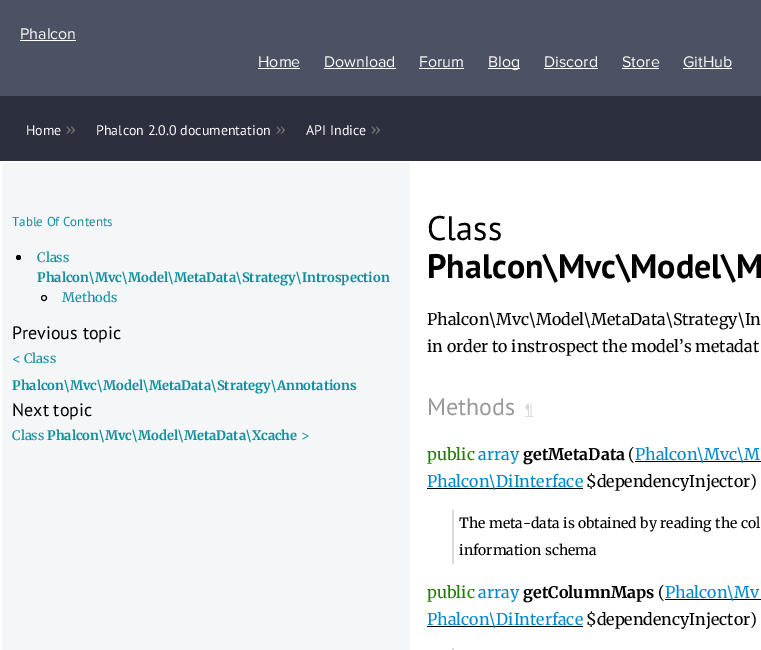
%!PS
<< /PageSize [761 650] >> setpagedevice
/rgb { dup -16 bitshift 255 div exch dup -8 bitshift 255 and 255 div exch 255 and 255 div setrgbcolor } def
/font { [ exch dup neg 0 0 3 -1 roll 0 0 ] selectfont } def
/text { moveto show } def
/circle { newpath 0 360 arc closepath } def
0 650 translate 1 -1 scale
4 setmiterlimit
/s1 { /ProximaNova-Regular 16 font 16#FAFAFA rgb } def
/s2 { /PTSans-Regular 14 font 16#FAFAFA rgb } def
/s3 { /Merriweather-Regular 16 font 16#717171 rgb } def
/s4 { /PTSans-Regular 13 font 16#118F9E rgb } def
/s5 { /Merriweather-Regular 13 font 16#118F9E rgb } def
/s6 { /Merriweather-Bold 13 font 16#118F9E rgb } def
/s7 { /PTSans-Regular 18 font 16#000000 rgb } def
/s8 { /PTSans-Regular 34 font 16#000000 rgb } def
/s9 { /PTSans-Bold 34 font 16#000000 rgb } def
/s10 { /Merriweather-Regular 16 font 16#000000 rgb } def
/s11 { /PTSans-Regular 24 font 16#999999 rgb } def
/s12 { /PTSans-Regular 16 font 16#DADADA rgb } def
/s13 { /Merriweather-Regular 16 font 16#267B0C rgb } def
/s14 { /Merriweather-Regular 16 font 16#0088CC rgb } def
/s15 { /Merriweather-Bold 16 font 16#000000 rgb } def
/s16 { /Merriweather-Regular 14 font 16#000000 rgb } def
16#FFFFFF rgb
0 0 761 650 rectfill
16#4C5264 rgb
0 0 761 96 rectfill
s1
(Phalcon) 20 39 text
16#FFFFFF rgb
20 40 56 1 rectfill
s1
(Home) 258 67 text
16#FFFFFF rgb
258 68 42 1 rectfill
s1
(Download) 324 67 text
16#FFFFFF rgb
324 68 72 1 rectfill
s1
(Forum) 419 67 text
16#FFFFFF rgb
419 68 45 1 rectfill
488 68 32 1 rectfill
s1
(Blog) 488 67 text
(Discord) 544 67 text
16#FFFFFF rgb
544 68 54 1 rectfill
s1
(Store) 622 67 text
16#FFFFFF rgb
622 68 37 1 rectfill
s1
(GitHub) 683 67 text
16#FFFFFF rgb
683 68 49 1 rectfill
16#2B2F3E rgb
0 96 761 65 rectfill
s2
(Home) 26 135 text
s3
(») 65 135 text
s2
(Phalcon 2.0.0 documentation) 96 135 text
s3
(») 275 135 text
s2
(API Indice) 306 135 text
s3
(») 370 135 text
16#F5F6F7 rgb
2 163 408 487 rectfill
s4
(Table Of Contents) 12 226 text
16#000000 rgb
18.5 257.5 2.5 circle fill
s5
(Class) 37 262 text
s6
(Phalcon\\Mvc\\Model\\MetaData\\Strategy\\Introspection) 37 282 text
16#000000 rgb
44 298 2.5 circle stroke
s5
(Methods) 62 302 text
s7
(Previous topic) 12 339 text
s5
(< Class) 12 363 text
s6
(Phalcon\\Mvc\\Model\\MetaData\\Strategy\\Annotations) 12 390 text
s7
(Next topic) 12 416 text
s5
(Class) 12 440 text
s6
(Phalcon\\Mvc\\Model\\MetaData\\Xcache) 47 440 text
s5
(>) 301 440 text
s8
(Class) 427 240 text
s9
(Phalcon\\Mvc\\Model\\M) 427 278 text
s10
(Phalcon\\Mvc\\Model\\MetaData\\Strategy\\In) 427 325 text
(in order to instrospect the model’s metadat) 427 352 text
s11
(Methods) 427 415 text
16#DADADA rgb
525 416 8 1 rectfill
s12
(¶) 525 415 text
s13
(public) 427 460 text
s14
(array) 478 460 text
s15
(getMetaData) 523 460 text
s10
(\() 628 460 text
635 461 126 1 rectfill
s14
(Phalcon\\Mvc\\M) 635 460 text
16#000000 rgb
427 488 156 1 rectfill
s14
(Phalcon\\DiInterface) 427 487 text
s10
($dependencyInjector\)) 586 487 text
16#DADADA rgb
452 510 2 54 rectfill
s16
(The meta-data is obtained by reading the col) 459 528 text
(information schema) 459 555 text
s13
(public) 427 598 text
s14
(array) 478 598 text
s15
(getColumnMaps) 523 598 text
s10
(\() 658 598 text
665 599 96 1 rectfill
s14
(Phalcon\\Mv) 665 598 text
16#000000 rgb
427 626 156 1 rectfill
s14
(Phalcon\\DiInterface) 427 625 text
s10
($dependencyInjector\)) 586 625 text
16#DADADA rgb
452 648 2 2 rectfill
showpage
